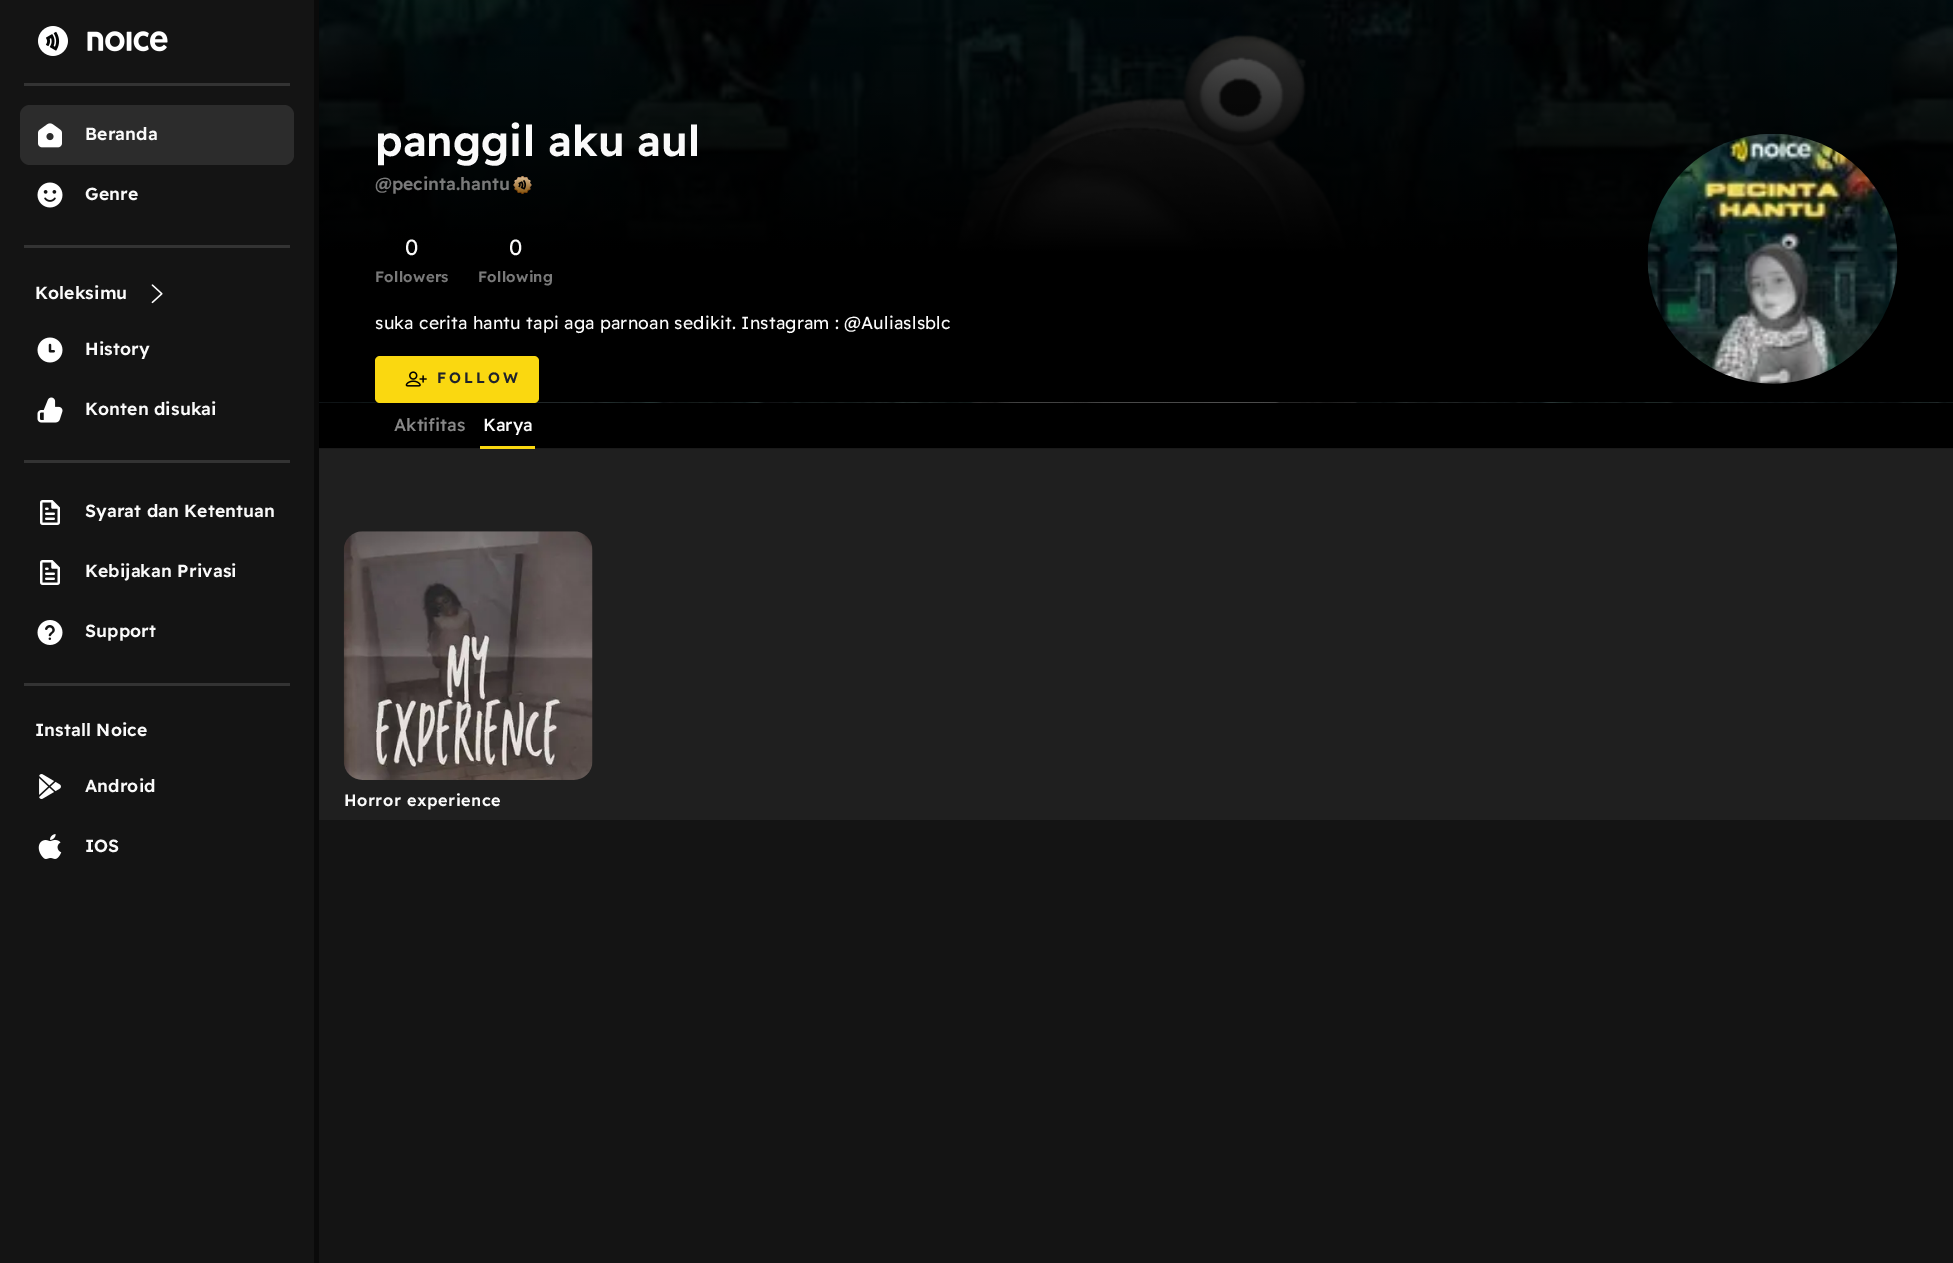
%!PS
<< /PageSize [1953 1263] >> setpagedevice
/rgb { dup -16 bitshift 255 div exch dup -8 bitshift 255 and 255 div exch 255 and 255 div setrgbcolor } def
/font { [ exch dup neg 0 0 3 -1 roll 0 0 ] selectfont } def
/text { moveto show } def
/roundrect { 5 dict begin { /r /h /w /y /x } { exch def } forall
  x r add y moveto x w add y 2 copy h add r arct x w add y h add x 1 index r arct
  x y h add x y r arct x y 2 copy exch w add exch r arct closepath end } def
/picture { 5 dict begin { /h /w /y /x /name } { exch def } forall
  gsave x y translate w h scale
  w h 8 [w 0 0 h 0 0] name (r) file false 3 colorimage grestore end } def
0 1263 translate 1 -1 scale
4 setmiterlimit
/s1 { /ReadexPro-SemiBold 17.5 font 16#7A7A7A rgb } def
/s2 { /ReadexPro-Regular 22 font 16#FAFAFA rgb } def
/s3 { /ReadexPro-Medium 17.5 font 16#888888 rgb } def
/s4 { /ReadexPro-Medium 17.5 font 16#FAFAFA rgb } def
16#141414 rgb
0 0 1953 1263 rectfill
16#0A0A0A rgb
314 0 5 1263 rectfill
(pic1.raw) 38 26 130 30 picture
16#333333 rgb
24 83 266 3 rectfill
16#2C2C2C rgb
20 105 274 60 10 roundrect fill
(pic2.raw) 38 123 24 25 picture
/ReadexPro-SemiBold 17.5 font
16#FAFAFA rgb
85 140 moveto 0.1 0 (Beranda) ashow
(pic3.raw) 37 182 26 26 picture
85 200 moveto 0.1 0 (Genre) ashow
16#333333 rgb
24 245 266 3 rectfill
16#FAFAFA rgb
35 299 moveto 0.1 0 (Koleksimu) ashow
(pic4.raw) 151 284 12 20 picture
(pic5.raw) 37 337 26 26 picture
85 355 moveto 0.1 0 (History) ashow
(pic6.raw) 37 397 26 26 picture
85 415 moveto 0.1 0 (Konten disukai) ashow
16#333333 rgb
24 460 266 3 rectfill
(pic7.raw) 40 500 20 25 picture
16#FAFAFA rgb
85 517 moveto 0.1 0 (Syarat dan Ketentuan) ashow
(pic7.raw) 40 560 20 25 picture
85 577 moveto 0.1 0 (Kebijakan Privasi) ashow
(pic8.raw) 37 620 26 25 picture
85 637 moveto 0.1 0 (Support) ashow
16#333333 rgb
24 683 266 3 rectfill
16#FAFAFA rgb
35 736 moveto 0.1 0 (Install Noice) ashow
(pic9.raw) 39 774 22 25 picture
85 792 moveto 0.1 0 (Android) ashow
(pic10.raw) 38 834 24 25 picture
85 852 moveto 0.1 0 (IOS) ashow
16#1F1F1F rgb
319 402 1634 418 rectfill
(pic11.raw) 319 0 1634 403 picture
/ReadexPro-SemiBold 42.5 font
16#FAFAFA rgb
375 156 moveto 0.1 0 (panggil aku aul) ashow
s1
(@pecinta.hantu) 375 190 text
(pic12.raw) 513 176 19 18 picture
s2
(0) 405 255 text
/ReadexPro-SemiBold 15 font
16#7A7A7A rgb
375 282 moveto 0.25 0 (Followers) ashow
s2
(0) 509 255 text
/ReadexPro-SemiBold 15 font
16#7A7A7A rgb
478 282 moveto 0.25 0 (Following) ashow
/ReadexPro-Regular 17.5 font
16#FAFAFA rgb
375 329 moveto 0.18 0 (suka cerita hantu tapi aga parnoan sedikit. Instagram : @Auliaslsblc) ashow
16#FAD810 rgb
375 356 164 47 5 roundrect fill
(pic13.raw) 405 371 22 16 picture
/ReadexPro-SemiBold 15 font
16#1E222C rgb
437 383 moveto 3 0 (FOLLOW) ashow
(pic14.raw) 1647 134 251 250 picture
16#000000 rgb
319 403 1634 45 rectfill
16#1A1A1A rgb
319 448 1634 1 rectfill
s3
(Aktifitas) 394 431 text
s4
(Karya) 483 431 text
16#FAD810 rgb
480 446 55 3 rectfill
(pic15.raw) 343 531 250 249 picture
/ReadexPro-SemiBold 16.25 font
16#FAFAFA rgb
344 806 moveto 0.5 0 (Horror experience) ashow
showpage
